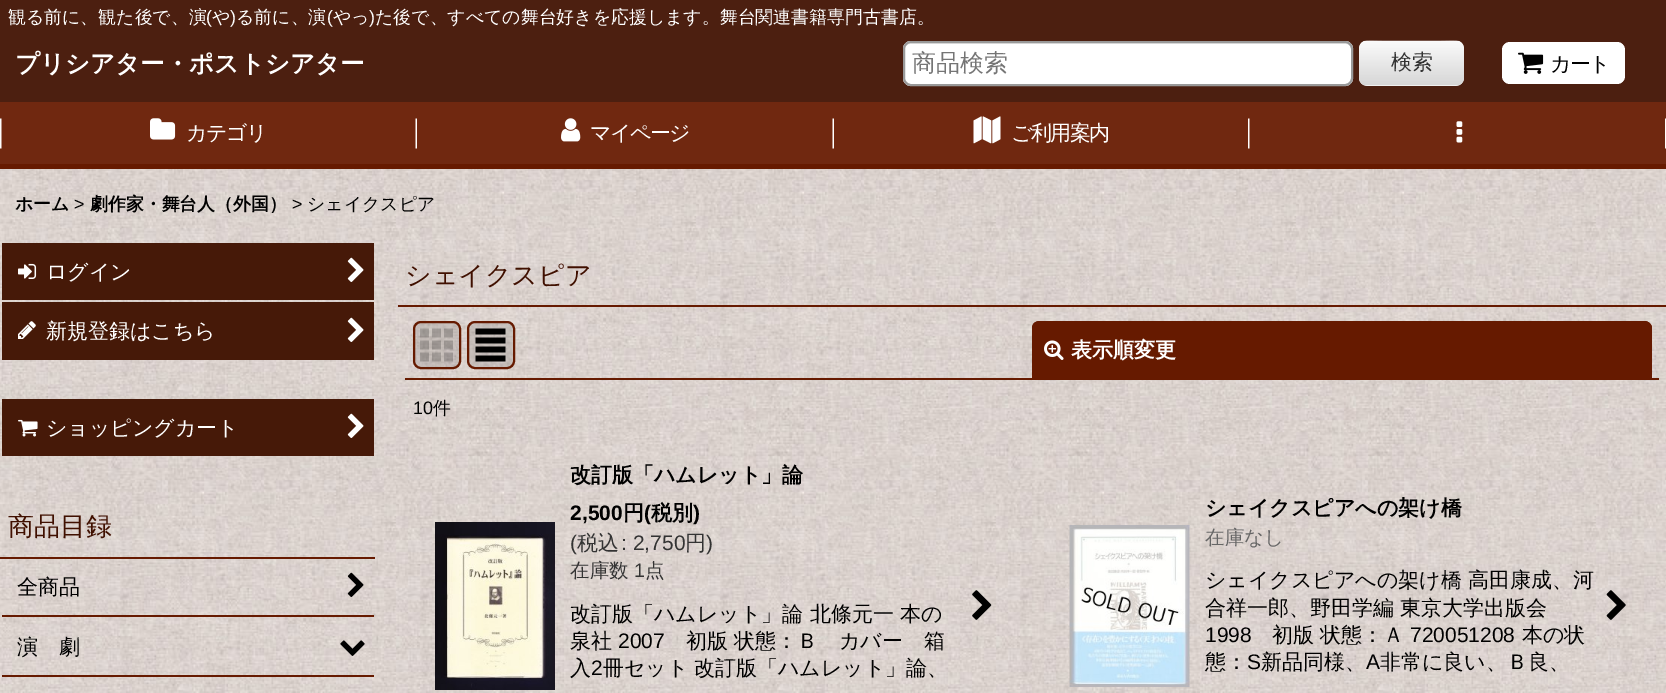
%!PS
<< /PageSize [1666 693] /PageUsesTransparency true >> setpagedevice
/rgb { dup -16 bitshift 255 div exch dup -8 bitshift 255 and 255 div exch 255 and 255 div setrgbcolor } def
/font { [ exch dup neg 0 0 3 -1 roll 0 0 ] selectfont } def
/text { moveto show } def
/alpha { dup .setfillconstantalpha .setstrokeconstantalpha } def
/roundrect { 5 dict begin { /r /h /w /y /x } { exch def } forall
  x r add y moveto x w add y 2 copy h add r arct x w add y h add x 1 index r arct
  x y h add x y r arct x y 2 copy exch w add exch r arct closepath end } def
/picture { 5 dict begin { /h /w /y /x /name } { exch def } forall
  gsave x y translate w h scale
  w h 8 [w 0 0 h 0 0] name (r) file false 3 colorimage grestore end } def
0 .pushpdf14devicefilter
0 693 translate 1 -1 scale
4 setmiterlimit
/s1 { /WenQuanYiZenHei-Medium 17.9 font 16#FFFFFF rgb } def
/s2 { /LiberationSans-Regular 17.9 font 16#FFFFFF rgb } def
/s3 { /WenQuanYiZenHei-Medium 24 font 16#757575 rgb } def
/s4 { /WenQuanYiZenHei-Medium 21 font 16#333333 rgb } def
/s5 { /WenQuanYiZenHei-Bold 24.5 font 16#FFFFFF rgb } def
/s6 { /WenQuanYiZenHei-Bold 17.9 font 16#000000 rgb } def
/s7 { /LiberationSans-Regular 17.9 font 16#000000 rgb } def
/s8 { /WenQuanYiZenHei-Medium 17.9 font 16#000000 rgb } def
/s9 { /WenQuanYiZenHei-Medium 21 font 16#FFFFFF rgb } def
/s10 { /WenQuanYiZenHei-Medium 26 font 16#401000 rgb } def
/s11 { /WenQuanYiZenHei-Medium 21 font 16#000000 rgb } def
/s12 { /WenQuanYiZenHei-Bold 21 font 16#FFFFFF rgb } def
/s13 { /LiberationSans-Regular 18 font 16#000000 rgb } def
/s14 { /WenQuanYiZenHei-Medium 18 font 16#000000 rgb } def
/s15 { /WenQuanYiZenHei-Bold 21 font 16#000000 rgb } def
/s16 { /LiberationSans-Bold 21 font 16#000000 rgb } def
/s17 { /LiberationSans-Regular 21 font 16#333333 rgb } def
/s18 { /WenQuanYiZenHei-Medium 19.5 font 16#333333 rgb } def
/s19 { /LiberationSans-Regular 19.5 font 16#333333 rgb } def
/s20 { /LiberationSans-Regular 21 font 16#000000 rgb } def
/s21 { /WenQuanYiZenHei-Medium 19.5 font 16#666666 rgb } def
16#FFFFFF rgb
0 0 1666 693 rectfill
(pic1.raw) 0 169 1666 524 picture
16#4C1F10 rgb
0 0 1666 102 rectfill
s1
(観る前に、観た後で、演) 8 23 text
s2
(\() 206 23 text
s1
(や) 212 23 text
s2
(\)) 230 23 text
s1
(る前に、演) 236 23 text
s2
(\() 327 23 text
s1
(やっ) 333 23 text
s2
(\)) 369 23 text
s1
(た後で、すべての舞台好きを応援します。舞台関連書籍専門古書店。) 375 23 text
903 41 450 45 8 roundrect fill
16#ECECEC rgb
910 44 moveto 1346 44 lineto 1349 44 1352 46 1352 50 curveto 1352 48 lineto 1352 45 1349 42 1346 42 curveto 911 42 lineto 908 42 906 44 905 46 curveto 906 45 908 44 910 44 curveto closepath fill
16#999999 rgb
2 setlinewidth
904 42 448 43 7 roundrect stroke
s3
(商品検索) 912 71 text
16#F9F9F9 rgb
1359 41 105 45 8 roundrect fill
(pic2.raw) 1359 40 105 46 picture
0.2 alpha
16#FFFFFF rgb
1366 42 moveto 1456 42 lineto 1461 42 1464 45 1464 50 curveto 1464 37 1449 41 1441 41 curveto 1382 41 lineto 1374 41 1359 37 1359 50 curveto 1359 45 1362 42 1366 42 curveto closepath fill
1 alpha
s4
(検索) 1391 69 text
s5
(プリシアター・ポストシアター) 15 72 text
1502 42 123 42 8 roundrect fill
(pic3.raw) 1518 52 26 22 picture
/WenQuanYiZenHei-Medium 21 font
16#000000 rgb
1550 71 moveto -1.5 0 (カート) ashow
16#702810 rgb
0 102 1666 62 rectfill
(pic4.raw) 0 118 417 31 picture
16#661A00 rgb
0 164 1666 5 rectfill
(pic5.raw) 150 118 26 22 picture
16#FFFFFF rgb
186 140 moveto -1.5 0 (カテゴリ) ashow
(pic6.raw) 832 118 2 31 picture
(pic7.raw) 561 118 20 24 picture
590 140 moveto -1.5 0 (マイページ) ashow
(pic8.raw) 1248 118 2 31 picture
(pic9.raw) 973 116 28 28 picture
1011 140 moveto -1.5 0 (ご利用案内) ashow
(pic10.raw) 1665 118 1 31 picture
(pic11.raw) 1456 121 7 22 picture
s6
(ホーム) 15 210 text
s7
(>) 74 210 text
s6
(劇作家・舞台人（外国）) 90 210 text
s7
(>) 292 210 text
s8
(シェイクスピア) 307 210 text
16#461908 rgb
2 243 372 57 rectfill
(pic12.raw) 18 263 19 16 picture
s9
(ログイン) 46 279 text
(pic13.raw) 347 257 17 25 picture
16#461908 rgb
2 302 372 58 rectfill
(pic14.raw) 18 321 18 18 picture
s9
(新規登録はこちら) 46 338 text
(pic13.raw) 347 317 17 25 picture
16#461908 rgb
2 399 372 57 rectfill
(pic15.raw) 18 419 20 18 picture
s9
(ショッピングカート) 46 435 text
(pic13.raw) 347 413 17 25 picture
16#661A00 rgb
0 557 375 2 rectfill
s10
(商品目録) 8 535 text
16#661A00 rgb
2 615 372 2 rectfill
s11
(全商品) 17 594 text
(pic16.raw) 347 572 17 25 picture
16#661A00 rgb
2 675 372 2 rectfill
s11
(演　劇) 17 654 text
(pic17.raw) 340 640 25 16 picture
16#661A00 rgb
398 305 1268 2 rectfill
s10
(シェイクスピア) 405 284 text
16#661A00 rgb
405 378 1254 2 rectfill
(pic18.raw) 412 321 49 48 picture
414 322 46 46 7 roundrect stroke
(pic19.raw) 420 328 33 34 picture
(pic20.raw) 466 321 49 48 picture
468 322 46 46 7 roundrect stroke
(pic21.raw) 475 328 31 34 picture
1040 321 moveto 1644 321 lineto 1648.5 321 1652 324.5 1652 329 curveto 1652 378 lineto 1032 378 lineto 1032 329 lineto 1032 324.5 1035.5 321 1040 321 curveto closepath fill
1040 321 moveto 1644 321 lineto 1648 321 1652 324 1652 328 curveto 1652 378 lineto 1032 378 lineto 1032 328 lineto 1032 324 1035 321 1040 321 curveto closepath 1040 322 moveto 1644 322 lineto 1647 322 1650 325 1650 328 curveto 1650 378 lineto 1034 378 lineto 1034 328 lineto 1034 325 1036 322 1040 322 curveto closepath eofill
(pic22.raw) 1044 340 20 20 picture
s12
(表示順変更) 1071 357 text
s13
(10) 413 414 text
s14
(件) 433 414 text
(pic23.raw) 435 522 120 168 picture
s15
(改訂版「ハムレット」論) 570 482 text
s16
(2,500) 570 520 text
s15
(円) 623 520 text
s16
(\() 644 520 text
s15
(税別) 651 520 text
s16
(\)) 693 520 text
s17
(\() 570 550 text
s4
(税込) 577 550 text
s17
(: 2,750) 621 550 text
s4
(円) 685 550 text
s17
(\)) 706 550 text
s18
(在庫数) 570 577 text
s19
(1) 634 577 text
s18
(点) 645 577 text
s11
(改訂版「ハムレット」論) 570 621 text
(北條元一) 810 621 text
(本の) 900 621 text
(泉社) 570 648 text
s20
(2007) 618 648 text
s11
(初版) 686 648 text
(状態：Ｂ　カバー　箱) 734 648 text
(入) 570 675 text
s20
(2) 591 675 text
s11
(冊セット) 603 675 text
(改訂版「ハムレット」論、) 694 675 text
(pic24.raw) 972 590 20 30 picture
(pic25.raw) 1069 525 121 162 picture
s15
(シェイクスピアへの架け橋) 1205 515 text
s21
(在庫なし) 1205 544 text
s11
(シェイクスピアへの架け橋) 1205 587 text
(高田康成、河) 1468 587 text
(合祥一郎、野田学編) 1205 615 text
(東京大学出版会) 1400 615 text
s20
(1998) 1205 642 text
s11
(初版) 1272 642 text
(状態：Ａ) 1320 642 text
s20
(720051208) 1410 642 text
s11
(本の状) 1522 642 text
(態：) 1205 669 text
s20
(S) 1247 669 text
s11
(新品同様、) 1261 669 text
s20
(A) 1366 669 text
s11
(非常に良い、Ｂ良、) 1380 669 text
(pic26.raw) 1606 590 20 30 picture
.poppdf14devicefilter showpage
